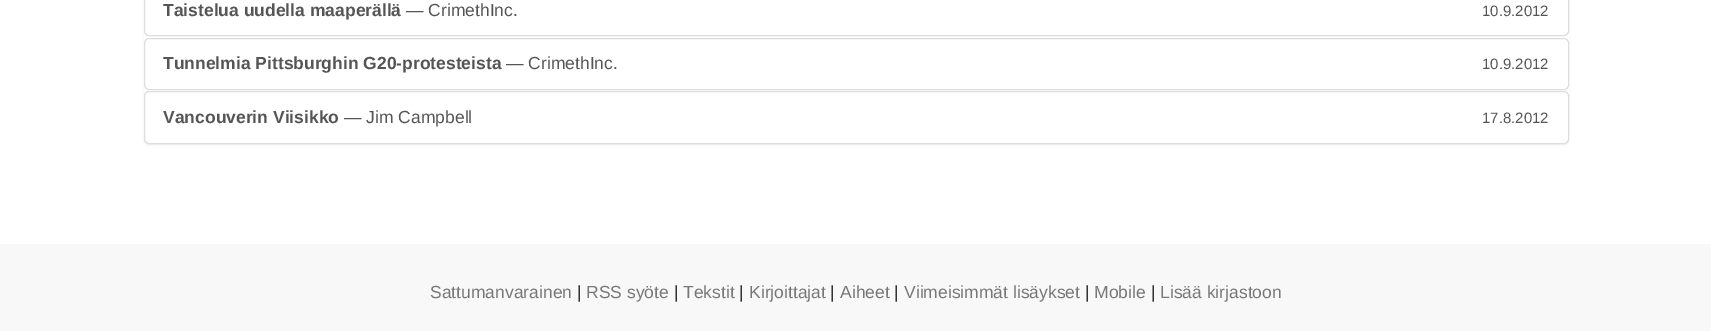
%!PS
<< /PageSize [1711 331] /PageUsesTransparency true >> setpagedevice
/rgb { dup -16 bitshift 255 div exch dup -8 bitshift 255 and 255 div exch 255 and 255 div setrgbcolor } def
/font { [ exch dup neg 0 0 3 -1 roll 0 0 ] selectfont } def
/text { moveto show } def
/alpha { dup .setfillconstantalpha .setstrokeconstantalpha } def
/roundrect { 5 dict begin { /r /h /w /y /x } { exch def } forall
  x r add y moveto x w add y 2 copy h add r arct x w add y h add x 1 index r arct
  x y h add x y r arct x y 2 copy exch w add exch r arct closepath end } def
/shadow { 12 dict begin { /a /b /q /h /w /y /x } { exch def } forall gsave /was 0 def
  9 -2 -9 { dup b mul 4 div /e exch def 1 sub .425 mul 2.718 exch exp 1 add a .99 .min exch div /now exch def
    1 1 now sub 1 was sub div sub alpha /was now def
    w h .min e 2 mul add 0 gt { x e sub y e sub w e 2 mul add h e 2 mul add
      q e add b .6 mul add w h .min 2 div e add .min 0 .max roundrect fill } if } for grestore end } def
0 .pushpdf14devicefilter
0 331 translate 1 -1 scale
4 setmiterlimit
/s1 { /LiberationSans-Bold 17.5 font 16#555555 rgb } def
/s2 { /LiberationSans-Regular 17.5 font 16#555555 rgb } def
/s3 { /LiberationSans-Regular 15 font 16#555555 rgb } def
/s4 { /LiberationSans-Regular 17.5 font 16#777777 rgb } def
/s5 { /LiberationSans-Regular 17.5 font 16#333333 rgb } def
16#FFFFFF rgb
0 0 1711 331 rectfill
gsave
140 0 moveto 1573 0 lineto 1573 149 lineto 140 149 lineto closepath 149 -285 moveto 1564 -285 lineto 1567 -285 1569 -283 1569 -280 curveto 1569 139 lineto 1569 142 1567 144 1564 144 curveto 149 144 lineto 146 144 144 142 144 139 curveto 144 -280 lineto 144 -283 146 -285 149 -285 curveto closepath eoclip newpath
16#000000 rgb
144 -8 1425 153 5 1 0.07 shadow
grestore
144.5 -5.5 1424 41 4.5 roundrect gsave fill grestore
16#DDDDDD rgb
stroke
s1
(Taistelua uudella maaperällä) 163 16 text
s2
(— CrimethInc.) 406 16 text
s3
(10.9.2012) 1482 16 text
16#FFFFFF rgb
144.5 38.5 1424 51 4.5 roundrect gsave fill grestore
16#DDDDDD rgb
stroke
s1
(Tunnelmia Pittsburghin G20-protesteista) 163 69 text
s2
(— CrimethInc.) 506 69 text
s3
(10.9.2012) 1482 69 text
16#FFFFFF rgb
144.5 91.5 1424 52 4.5 roundrect gsave fill grestore
16#DDDDDD rgb
stroke
s1
(Vancouverin Viisikko) 163 123 text
s2
(— Jim Campbell) 344 123 text
s3
(17.8.2012) 1482 123 text
16#F8F8F8 rgb
0 244 1711 87 rectfill
s4
(Sattumanvarainen) 430 298 text
s5
(|) 577 298 text
s4
(RSS syöte) 586 298 text
s5
(|) 674 298 text
s4
(Tekstit) 683 298 text
s5
(|) 739 298 text
s4
(Kirjoittajat) 749 298 text
s5
(|) 830 298 text
s4
(Aiheet) 840 298 text
s5
(|) 894 298 text
s4
(Viimeisimmät lisäykset) 904 298 text
s5
(|) 1085 298 text
s4
(Mobile) 1094 298 text
s5
(|) 1151 298 text
s4
(Lisää kirjastoon) 1160 298 text
.poppdf14devicefilter showpage
